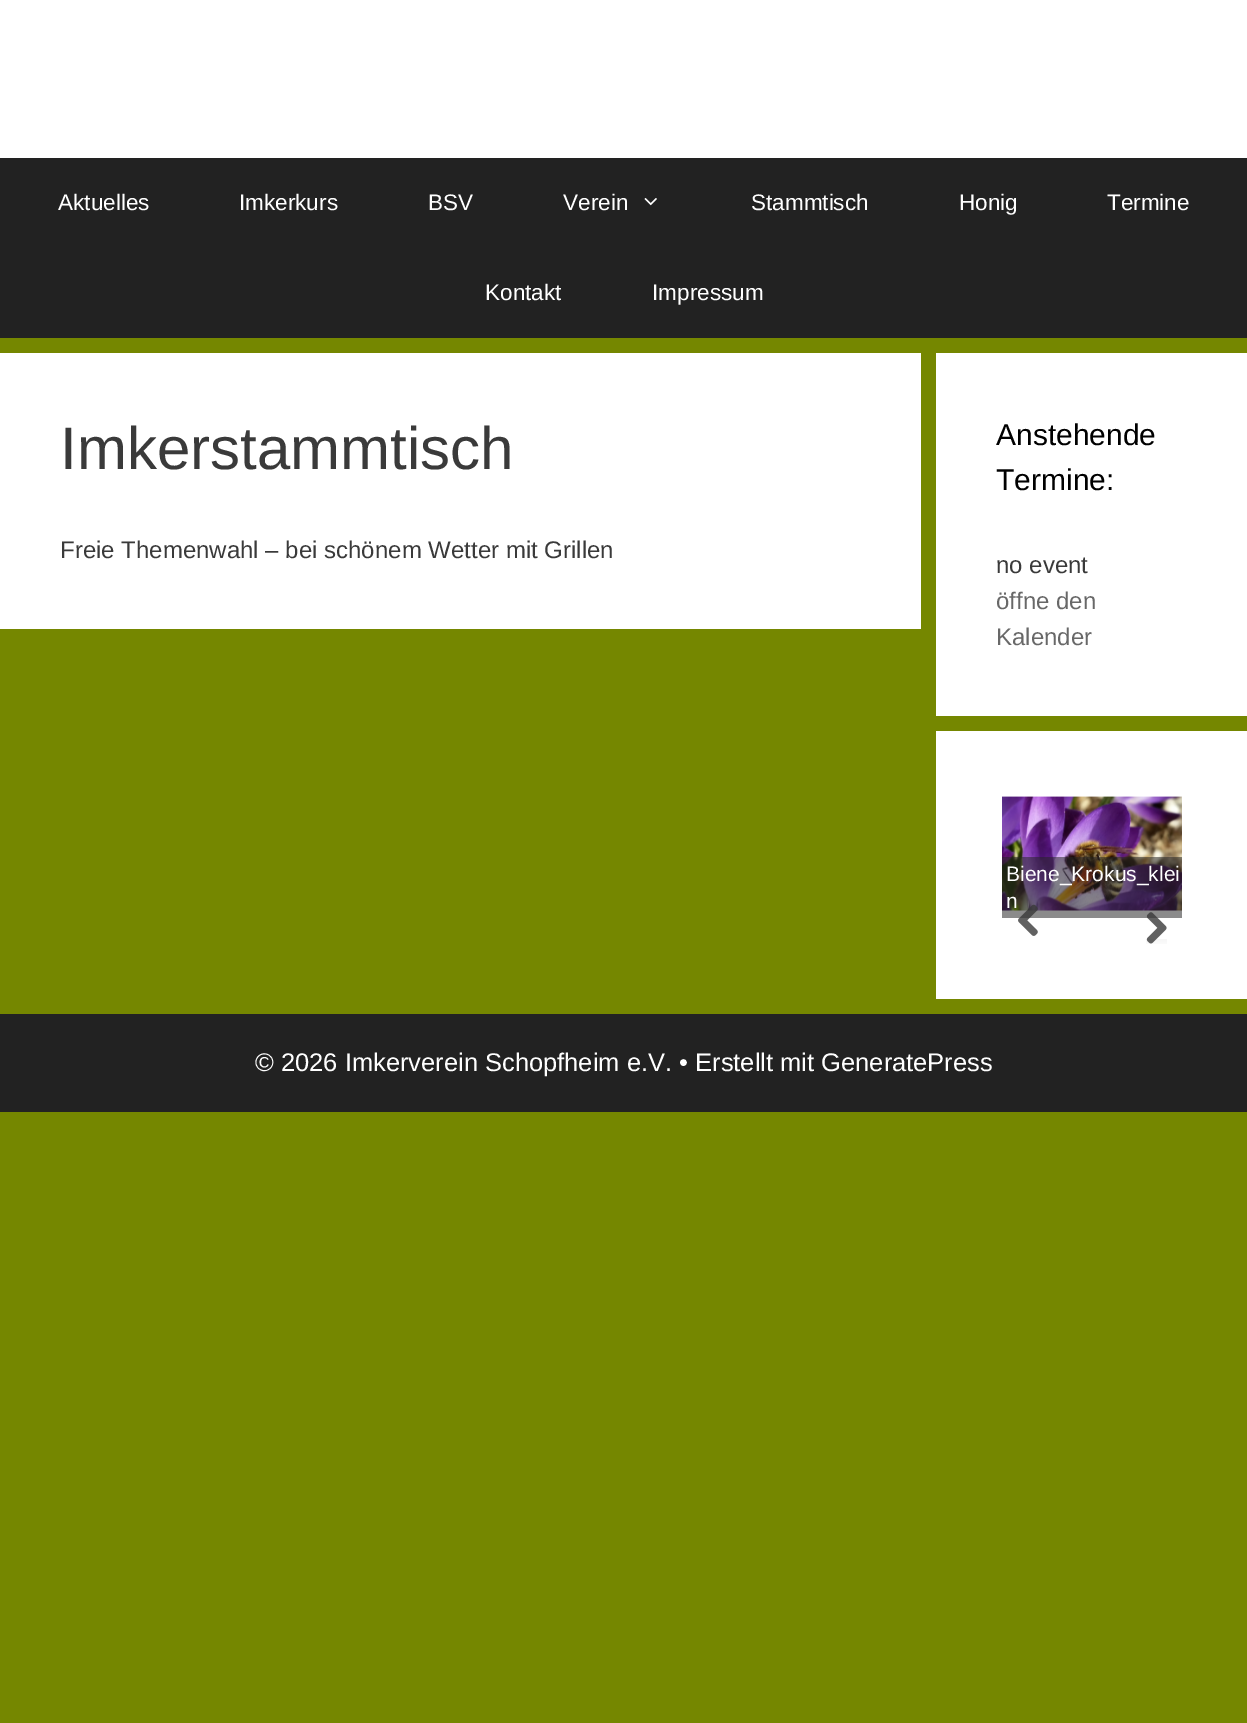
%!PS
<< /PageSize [1247 1723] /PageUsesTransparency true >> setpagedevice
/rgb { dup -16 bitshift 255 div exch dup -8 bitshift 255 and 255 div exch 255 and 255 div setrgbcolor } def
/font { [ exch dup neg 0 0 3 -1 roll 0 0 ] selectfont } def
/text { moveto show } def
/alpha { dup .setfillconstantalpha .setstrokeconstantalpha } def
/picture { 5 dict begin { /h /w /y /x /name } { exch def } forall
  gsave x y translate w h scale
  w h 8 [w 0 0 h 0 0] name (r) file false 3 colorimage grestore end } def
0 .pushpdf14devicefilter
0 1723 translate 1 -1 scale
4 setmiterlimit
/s1 { /LiberationSans-Regular 22.5 font 16#FFFFFF rgb } def
/s2 { /LiberationSans-Regular 60 font 16#3A3A3A rgb } def
/s3 { /LiberationSans-Regular 24 font 16#3A3A3A rgb } def
/s4 { /LiberationSans-Regular 30 font 16#000000 rgb } def
/s5 { /LiberationSans-Regular 24 font 16#686868 rgb } def
/s6 { /LiberationSans-Regular 21 font 16#FFFFFF rgb } def
/s7 { /LiberationSans-Regular 25.5 font 16#FFFFFF rgb } def
16#758700 rgb
0 0 1247 1723 rectfill
16#FFFFFF rgb
0 0 1247 158 rectfill
16#222222 rgb
0 158 1247 180 rectfill
s1
(Aktuelles) 58 210 text
(Imkerkurs) 239 210 text
(BSV) 428 210 text
(Verein) 563 210 text
(pic1.raw) 644 198 13 8 picture
(Stammtisch) 751 210 text
(Honig) 959 210 text
(Termine) 1107 210 text
(Kontakt) 485 300 text
(Impressum) 652 300 text
0 353 921 276 rectfill
s2
(Imkerstammtisch) 60 469 text
s3
(Freie Themenwahl – bei schönem Wetter mit Grillen) 60 558 text
16#FFFFFF rgb
936 353 311 363 rectfill
s4
(Anstehende) 996 445 text
(Termine:) 996 490 text
s3
(no event) 996 573 text
s5
(öffne den) 996 609 text
(Kalender) 996 645 text
16#FFFFFF rgb
936 731 311 268 rectfill
(pic2.raw) 1002 796 180 115 picture
0.53 alpha
16#242424 rgb
1002 857 180 61 rectfill
1 alpha
s6
(Biene_Krokus_klei) 1006 881 text
(n) 1006 908 text
(pic3.raw) 1018 904 20 32 picture
(pic4.raw) 1146 912 21 32 picture
16#222222 rgb
0 1014 1247 98 rectfill
s7
(© 2026 Imkerverein Schopfheim e.V. • Erstellt mit GeneratePress) 255 1071 text
.poppdf14devicefilter showpage
